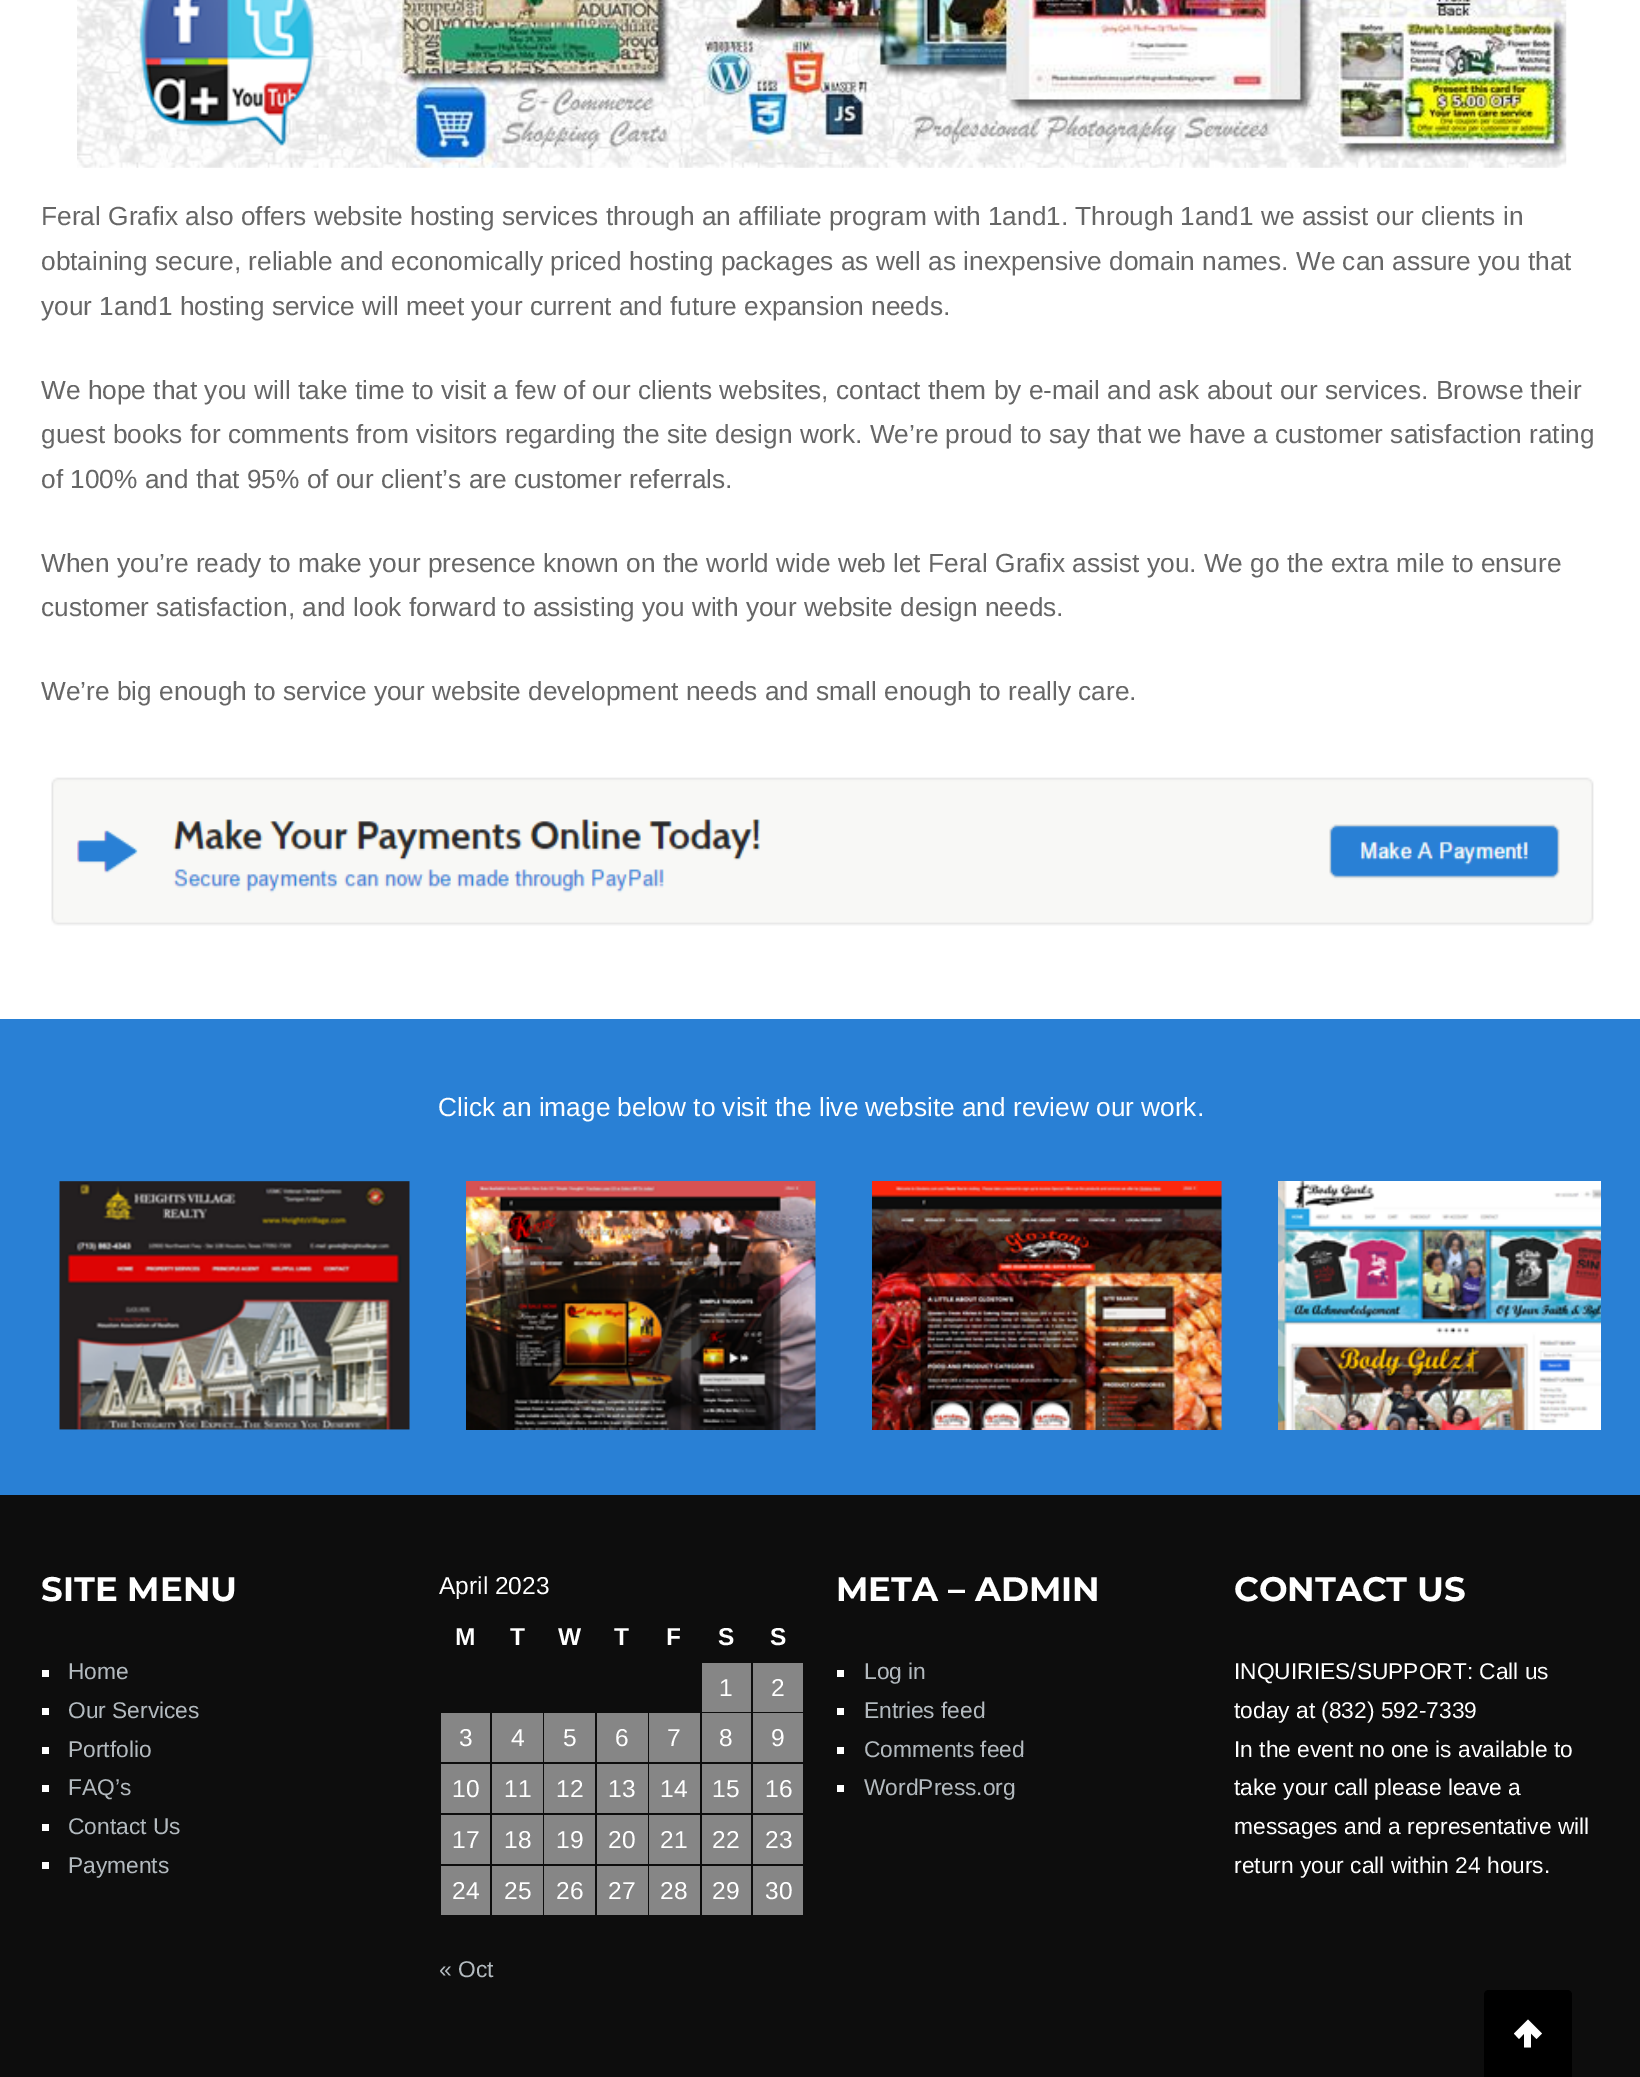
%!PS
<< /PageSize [1640 2077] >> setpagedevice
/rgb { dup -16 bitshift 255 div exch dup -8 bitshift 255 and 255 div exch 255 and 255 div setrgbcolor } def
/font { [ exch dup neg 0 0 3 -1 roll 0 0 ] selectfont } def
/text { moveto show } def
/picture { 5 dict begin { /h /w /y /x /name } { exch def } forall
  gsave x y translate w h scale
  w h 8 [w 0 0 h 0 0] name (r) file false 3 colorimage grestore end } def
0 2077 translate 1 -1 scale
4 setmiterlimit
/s1 { /LiberationSans-Regular 26.25 font 16#666666 rgb } def
/s2 { /LiberationSans-Regular 26.25 font 16#FFFFFF rgb } def
/s3 { /Montserrat-Bold 34 font 16#FFFFFF rgb } def
/s4 { /LiberationSans-Regular 22.75 font 16#B3BABF rgb } def
/s5 { /LiberationSans-Regular 24.5 font 16#FFFFFF rgb } def
/s6 { /LiberationSans-Bold 24.5 font 16#FFFFFF rgb } def
/s7 { /LiberationSans-Regular 22.75 font 16#FFFFFF rgb } def
16#0D0D0D rgb
0 0 1640 2077 rectfill
16#FFFFFF rgb
0 0 1640 1019 rectfill
(pic1.raw) 77 0 1490 168 picture
s1
(Feral Grafix also offers website hosting services through an affiliate program with 1and1. Through 1and1 we assist our clients in) 41 225 text
(obtaining secure, reliable and economically priced hosting packages as well as inexpensive domain names. We can assure you that) 41 270 text
(your 1and1 hosting service will meet your current and future expansion needs.) 41 315 text
(We hope that you will take time to visit a few of our clients websites, contact them by e-mail and ask about our services. Browse their) 41 399 text
(guest books for comments from visitors regarding the site design work. We’re proud to say that we have a customer satisfaction rating) 41 443 text
(of 100% and that 95% of our client’s are customer referrals.) 41 488 text
(When you’re ready to make your presence known on the world wide web let Feral Grafix assist you. We go the extra mile to ensure) 41 572 text
(customer satisfaction, and look forward to assisting you with your website design needs.) 41 616 text
(We’re big enough to service your website development needs and small enough to really care.) 41 700 text
(pic2.raw) 51 777 1543 149 picture
16#2980D5 rgb
0 1019 1640 476 rectfill
s2
(Click an image below to visit the live website and review our work.) 438 1116 text
(pic3.raw) 59 1181 351 249 picture
(pic4.raw) 466 1181 350 249 picture
(pic5.raw) 872 1181 350 249 picture
(pic6.raw) 1278 1181 323 249 picture
s3
(SITE MENU) 41 1601 text
42 1670 7 7 rectfill
s4
(Home) 68 1679 text
16#FFFFFF rgb
42 1708 7 7 rectfill
s4
(Our Services) 68 1718 text
16#FFFFFF rgb
42 1747 7 7 rectfill
s4
(Portfolio) 68 1757 text
16#FFFFFF rgb
42 1785 7 7 rectfill
s4
(FAQ’s) 68 1795 text
16#FFFFFF rgb
42 1824 7 7 rectfill
s4
(Contact Us) 68 1834 text
16#FFFFFF rgb
42 1862 7 7 rectfill
s4
(Payments) 68 1873 text
s5
(April 2023) 439 1594 text
s6
(M) 455 1645 text
(T) 510 1645 text
(W) 558 1645 text
(T) 614 1645 text
(F) 666 1645 text
(S) 718 1645 text
(S) 770 1645 text
16#868686 rgb
702 1663 49 49 rectfill
s5
(1) 719 1696 text
16#868686 rgb
753 1663 50 49 rectfill
s5
(2) 771 1696 text
16#868686 rgb
441 1713 49 49 rectfill
s5
(3) 459 1746 text
16#868686 rgb
492 1713 51 49 rectfill
s5
(4) 511 1746 text
16#868686 rgb
544 1713 51 49 rectfill
s5
(5) 563 1746 text
16#868686 rgb
597 1713 51 49 rectfill
s5
(6) 615 1746 text
16#868686 rgb
649 1713 51 49 rectfill
s5
(7) 667 1746 text
16#868686 rgb
702 1713 49 49 rectfill
s5
(8) 719 1746 text
16#868686 rgb
753 1713 50 49 rectfill
s5
(9) 771 1746 text
16#868686 rgb
441 1764 49 49 rectfill
s5
(10) 452 1797 text
16#868686 rgb
492 1764 51 49 rectfill
s5
(11) 504 1797 text
16#868686 rgb
544 1764 51 49 rectfill
s5
(12) 556 1797 text
16#868686 rgb
597 1764 51 49 rectfill
s5
(13) 608 1797 text
16#868686 rgb
649 1764 51 49 rectfill
s5
(14) 660 1797 text
16#868686 rgb
702 1764 49 49 rectfill
s5
(15) 712 1797 text
16#868686 rgb
753 1764 50 49 rectfill
s5
(16) 765 1797 text
16#868686 rgb
441 1815 49 49 rectfill
s5
(17) 452 1848 text
16#868686 rgb
492 1815 51 49 rectfill
s5
(18) 504 1848 text
16#868686 rgb
544 1815 51 49 rectfill
s5
(19) 556 1848 text
16#868686 rgb
597 1815 51 49 rectfill
s5
(20) 608 1848 text
16#868686 rgb
649 1815 51 49 rectfill
s5
(21) 660 1848 text
16#868686 rgb
702 1815 49 49 rectfill
s5
(22) 712 1848 text
16#868686 rgb
753 1815 50 49 rectfill
s5
(23) 765 1848 text
16#868686 rgb
441 1866 49 49 rectfill
s5
(24) 452 1899 text
16#868686 rgb
492 1866 51 49 rectfill
s5
(25) 504 1899 text
16#868686 rgb
544 1866 51 49 rectfill
s5
(26) 556 1899 text
16#868686 rgb
597 1866 51 49 rectfill
s5
(27) 608 1899 text
16#868686 rgb
649 1866 51 49 rectfill
s5
(28) 660 1899 text
16#868686 rgb
702 1866 49 49 rectfill
s5
(29) 712 1899 text
16#868686 rgb
753 1866 50 49 rectfill
s5
(30) 765 1899 text
s4
(« Oct) 439 1977 text
s3
(META – ADMIN) 836 1601 text
837 1670 7 7 rectfill
s4
(Log in) 864 1679 text
16#FFFFFF rgb
837 1708 7 7 rectfill
s4
(Entries feed) 864 1718 text
16#FFFFFF rgb
837 1747 7 7 rectfill
s4
(Comments feed) 864 1757 text
16#FFFFFF rgb
837 1785 7 7 rectfill
s4
(WordPress.org) 864 1795 text
s3
(CONTACT US) 1234 1601 text
s7
(INQUIRIES/SUPPORT: Call us) 1234 1679 text
(today at \(832\) 592-7339) 1234 1718 text
(In the event no one is available to) 1234 1757 text
(take your call please leave a) 1234 1795 text
(messages and a representative will) 1234 1834 text
(return your call within 24 hours.) 1234 1873 text
16#000000 rgb
1489 1990 moveto 1567 1990 lineto 1570 1990 1572 1992 1572 1995 curveto 1572 2077 lineto 1484 2077 lineto 1484 1995 lineto 1484 1992 1486 1990 1489 1990 curveto closepath fill
16#FFFFFF rgb
1531 2047.5 moveto 1524 2047.5 lineto 1524 2033.5 lineto 1519 2039 lineto 1514 2033.5 lineto 1528 2019.5 lineto 1542 2033.5 lineto 1536.5 2039 lineto 1531 2033.5 lineto closepath fill
showpage
